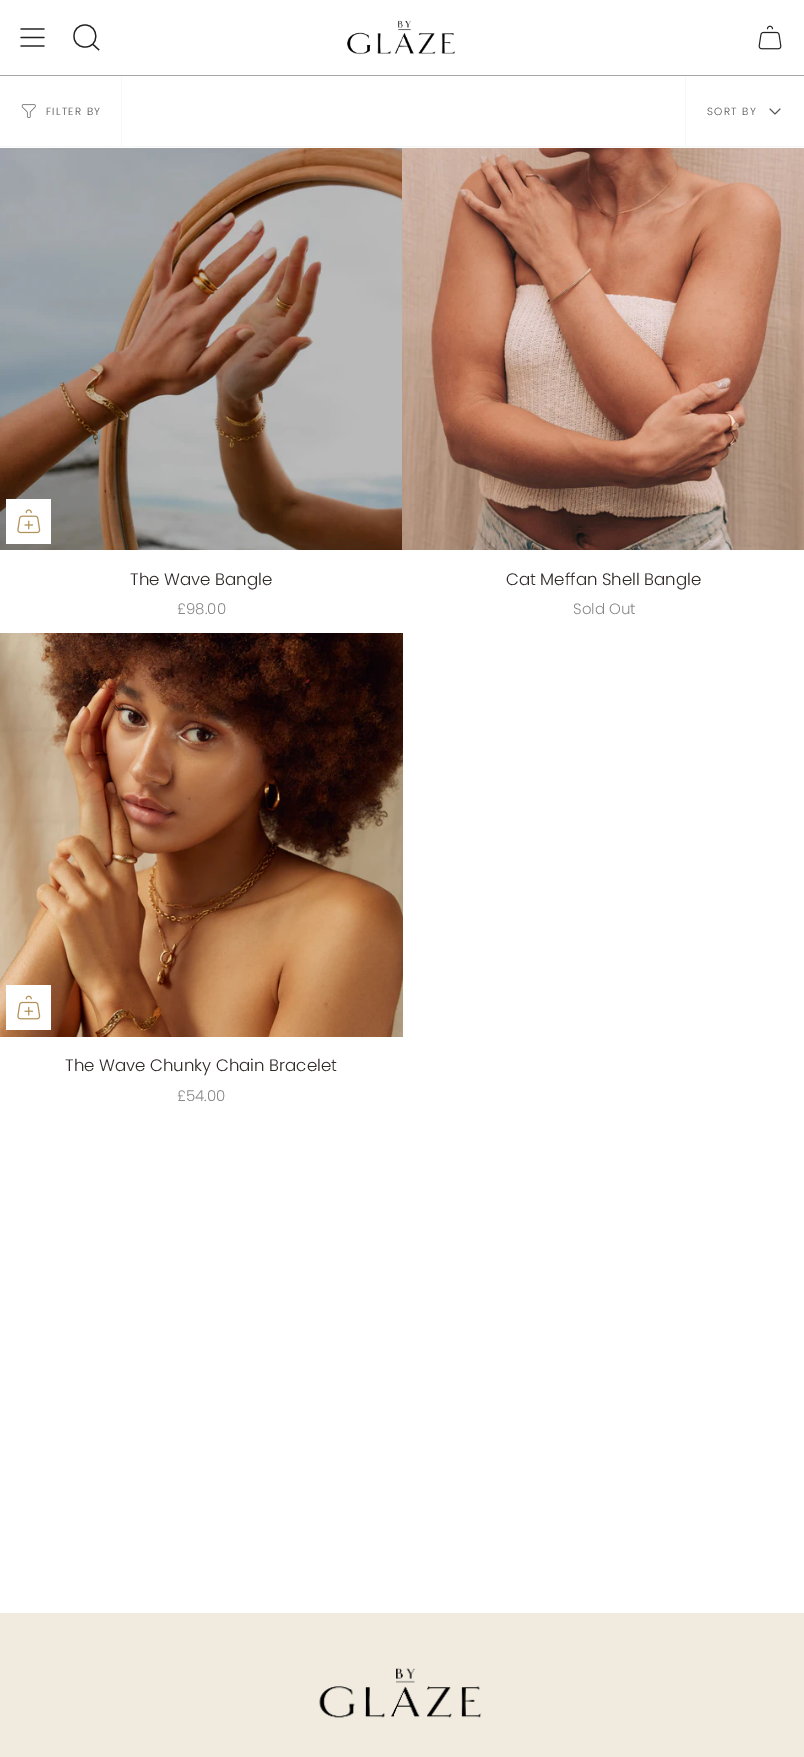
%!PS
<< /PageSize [804 1757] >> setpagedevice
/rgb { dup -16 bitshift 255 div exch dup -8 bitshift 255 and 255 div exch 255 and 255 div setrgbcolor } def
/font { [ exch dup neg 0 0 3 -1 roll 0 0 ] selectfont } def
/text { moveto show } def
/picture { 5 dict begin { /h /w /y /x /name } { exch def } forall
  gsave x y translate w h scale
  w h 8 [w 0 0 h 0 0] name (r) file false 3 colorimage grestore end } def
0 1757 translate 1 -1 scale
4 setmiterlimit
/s1 { /Poppins-Light 16.6 font 16#322929 rgb } def
/s2 { /Poppins-Light 15 font 16#878787 rgb } def
16#FFFFFF rgb
0 0 804 1757 rectfill
16#212121 rgb
1.2 setlinewidth
1 setlinecap
1 setlinejoin
21 29 moveto 44 29 lineto 21 37.5 moveto 44 37.5 lineto 21 46 moveto 44 46 lineto stroke
0 setlinecap
0 setlinejoin
85 25 moveto 99.5 25 99.5 48 84.5 47 curveto 70 46.5 70.5 25 85 25 curveto closepath 92.5 44 moveto 99 50 lineto stroke
(pic1.raw) 347 20 108 35 picture
(pic2.raw) 758 25 24 25 picture
16#A6A6A6 rgb
0 75 804 1 rectfill
16#F7F7F7 rgb
0 146 804 1 rectfill
121 76 1 70 rectfill
(pic3.raw) 21 104 15 14 picture
/Poppins-Light 10.5 font
16#545454 rgb
46 115 moveto 1.25 0 (FILTER BY) ashow
16#F7F7F7 rgb
685 76 1 70 rectfill
16#545454 rgb
707 115 moveto 1.25 0 (SORT BY) ashow
0.8 setlinewidth
1 setlinecap
1 setlinejoin
770 109 moveto 775 114 lineto 780 109 lineto stroke
(pic4.raw) 0 148 402 402 picture
16#FFFFFF rgb
6 499 45 45 rectfill
(pic5.raw) 17 509 24 25 picture
s1
(The Wave Bangle) 130 585 text
s2
(£98.00) 177 614 text
(pic6.raw) 402 148 402 402 picture
s1
(Cat Meffan Shell Bangle) 506 585 text
s2
(Sold Out) 573 614 text
(pic7.raw) 0 633 403 404 picture
16#FFFFFF rgb
6 985 45 45 rectfill
(pic8.raw) 17 995 24 25 picture
s1
(The Wave Chunky Chain Bracelet) 65 1071 text
s2
(£54.00) 177 1101 text
16#F1EBDF rgb
0 1613 804 144 rectfill
(pic9.raw) 319 1668 163 50 picture
showpage
